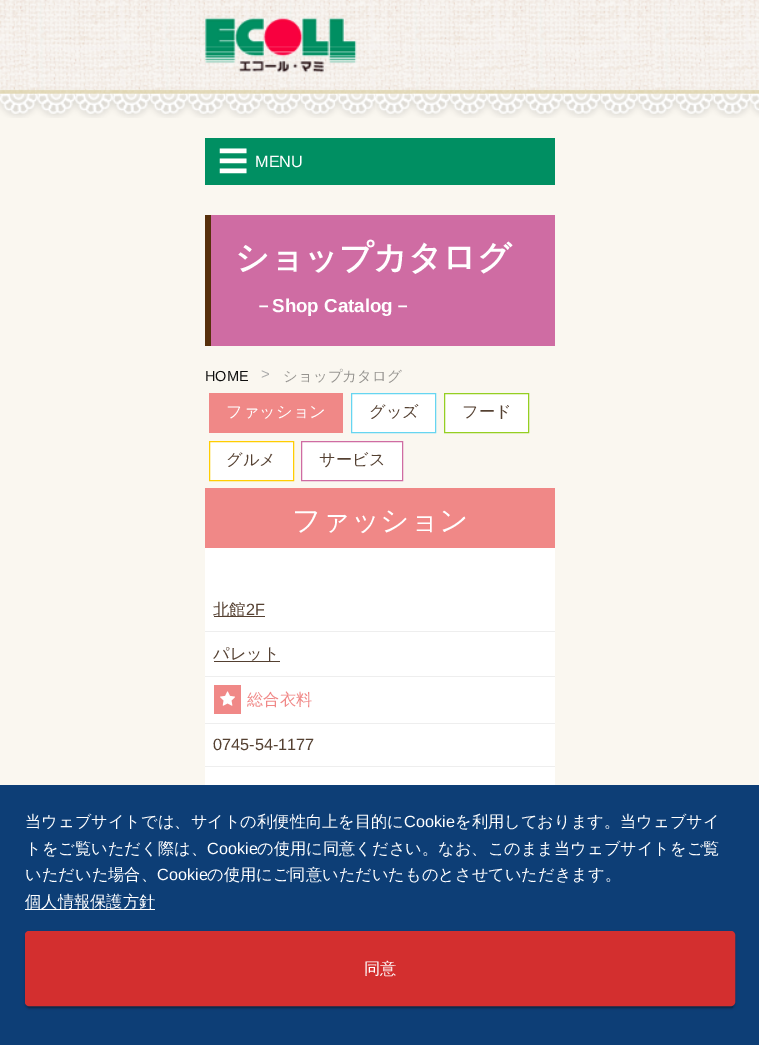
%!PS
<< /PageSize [759 1045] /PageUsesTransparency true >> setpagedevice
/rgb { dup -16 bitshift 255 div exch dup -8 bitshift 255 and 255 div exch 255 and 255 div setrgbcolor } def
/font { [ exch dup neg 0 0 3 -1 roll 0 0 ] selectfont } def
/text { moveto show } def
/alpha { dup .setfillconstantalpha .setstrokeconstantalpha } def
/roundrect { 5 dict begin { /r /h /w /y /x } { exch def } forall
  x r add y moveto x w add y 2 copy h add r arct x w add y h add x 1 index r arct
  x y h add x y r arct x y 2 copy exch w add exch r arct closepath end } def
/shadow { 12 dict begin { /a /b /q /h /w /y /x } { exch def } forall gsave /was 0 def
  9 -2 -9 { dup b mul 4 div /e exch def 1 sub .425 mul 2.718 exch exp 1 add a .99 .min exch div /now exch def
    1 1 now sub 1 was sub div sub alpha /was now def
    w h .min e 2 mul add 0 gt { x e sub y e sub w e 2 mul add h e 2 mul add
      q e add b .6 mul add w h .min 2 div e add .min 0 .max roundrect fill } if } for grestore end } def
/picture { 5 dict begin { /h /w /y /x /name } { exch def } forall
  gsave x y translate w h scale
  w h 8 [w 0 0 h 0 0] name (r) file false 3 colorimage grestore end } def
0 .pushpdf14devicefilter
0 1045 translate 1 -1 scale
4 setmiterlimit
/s1 { /WenQuanYiZenHei-Medium 30 font 16#FFFFFF rgb } def
/s2 { /LiberationSans-Regular 16.25 font 16#FFFFFF rgb } def
/s3 { /WenQuanYiZenHei-Bold 33.75 font 16#FFFFFF rgb } def
/s4 { /WenQuanYiZenHei-Bold 18.75 font 16#FFFFFF rgb } def
/s5 { /LiberationSans-Bold 18.75 font 16#FFFFFF rgb } def
/s6 { /LiberationSans-Regular 14.5 font 16#0F0F0F rgb } def
/s7 { /LiberationSans-Regular 15 font 16#AAAAAA rgb } def
/s8 { /WenQuanYiZenHei-Medium 14.5 font 16#969490 rgb } def
/s9 { /WenQuanYiZenHei-Medium 16.25 font 16#FFFFFF rgb } def
/s10 { /WenQuanYiZenHei-Medium 16.25 font 16#544031 rgb } def
/s11 { /WenQuanYiZenHei-Medium 28.75 font 16#FFFFFF rgb } def
/s12 { /LiberationSans-Regular 16.25 font 16#544031 rgb } def
/s13 { /WenQuanYiZenHei-Medium 16.25 font 16#F08887 rgb } def
16#FAF7F0 rgb
0 0 759 1045 rectfill
(pic1.raw) 0 0 759 118 picture
(pic2.raw) 205 17 152 56 picture
16#008F62 rgb
205 138 350 47 rectfill
s1
(☰) 218 172 text
s2
(MENU) 255 167 text
16#CF6CA3 rgb
211 215 344 131 rectfill
16#57300C rgb
205 215 6 131 rectfill
s3
(ショップカタログ) 235 269 text
s4
(－) 254 312 text
s5
(Shop Catalog) 272 312 text
s4
(－) 393 312 text
s6
(HOME) 205 381 text
s7
(>) 261 379 text
s8
(ショップカタログ) 283 381 text
16#F08887 rgb
209 393 134 40 rectfill
s9
(ファッション) 226 417 text
351.5 393.5 moveto 435.5 393.5 lineto 435.5 432.5 lineto 351.5 432.5 lineto closepath gsave fill grestore
16#66D5F1 rgb
stroke
s10
(グッズ) 369 417 text
16#FFFFFF rgb
444.5 393.5 moveto 528.5 393.5 lineto 528.5 432.5 lineto 444.5 432.5 lineto closepath gsave fill grestore
16#95CF22 rgb
stroke
s10
(フード) 462 417 text
16#FFFFFF rgb
209.5 441.5 moveto 293.5 441.5 lineto 293.5 480.5 lineto 209.5 480.5 lineto closepath gsave fill grestore
16#FFCD02 rgb
stroke
s10
(グルメ) 226 465 text
16#FFFFFF rgb
301.5 441.5 moveto 402.5 441.5 lineto 402.5 480.5 lineto 301.5 480.5 lineto closepath gsave fill grestore
16#CF6CA3 rgb
stroke
s10
(サービス) 319 465 text
16#FFFFFF rgb
205 548 350 237 rectfill
16#F08887 rgb
205 488 350 60 rectfill
s11
(ファッション) 292 530 text
16#EEEEEE rgb
205 631 350 1 rectfill
16#544031 rgb
214 616 51 1 rectfill
s10
(北館) 213 615 text
s12
(2F) 246 615 text
16#EEEEEE rgb
205 676 350 1 rectfill
s10
(パレット) 213 659 text
214 661 66 1 rectfill
16#EEEEEE rgb
205 723 350 1 rectfill
16#F08887 rgb
214 685 27 29 rectfill
(pic3.raw) 220 691 15 15 picture
(総合衣料) 247 705 text
16#EEEEEE rgb
205 766 350 1 rectfill
s12
(0745-54-1177) 213 750 text
16#0D3E76 rgb
0 785 759 260 rectfill
s9
(当ウェブサイトでは、サイトの利便性向上を目的に) 25 827 text
s2
(Cookie) 404 827 text
s9
(を利用しております。当ウェブサイ) 455 827 text
(トをご覧いただく際は、) 25 854 text
s2
(Cookie) 207 854 text
s9
(の使用に同意ください。なお、このまま当ウェブサイトをご覧) 257 854 text
(いただいた場合、) 25 880 text
s2
(Cookie) 157 880 text
s9
(の使用にご同意いただいたものとさせていただきます。) 207 880 text
25 909 130 1 rectfill
(個人情報保護方針) 25 907 text
16#000000 rgb
28 938 705 70 1 0.5 0.2 shadow
25 933 710 75 4 3 0.12 shadow
25 934 710 75 4 1 0.14 shadow
16#D32F2F rgb
26.5 932.5 707 72 2.5 roundrect gsave fill grestore
3 setlinewidth
stroke
s9
(同意) 364 974 text
.poppdf14devicefilter showpage
